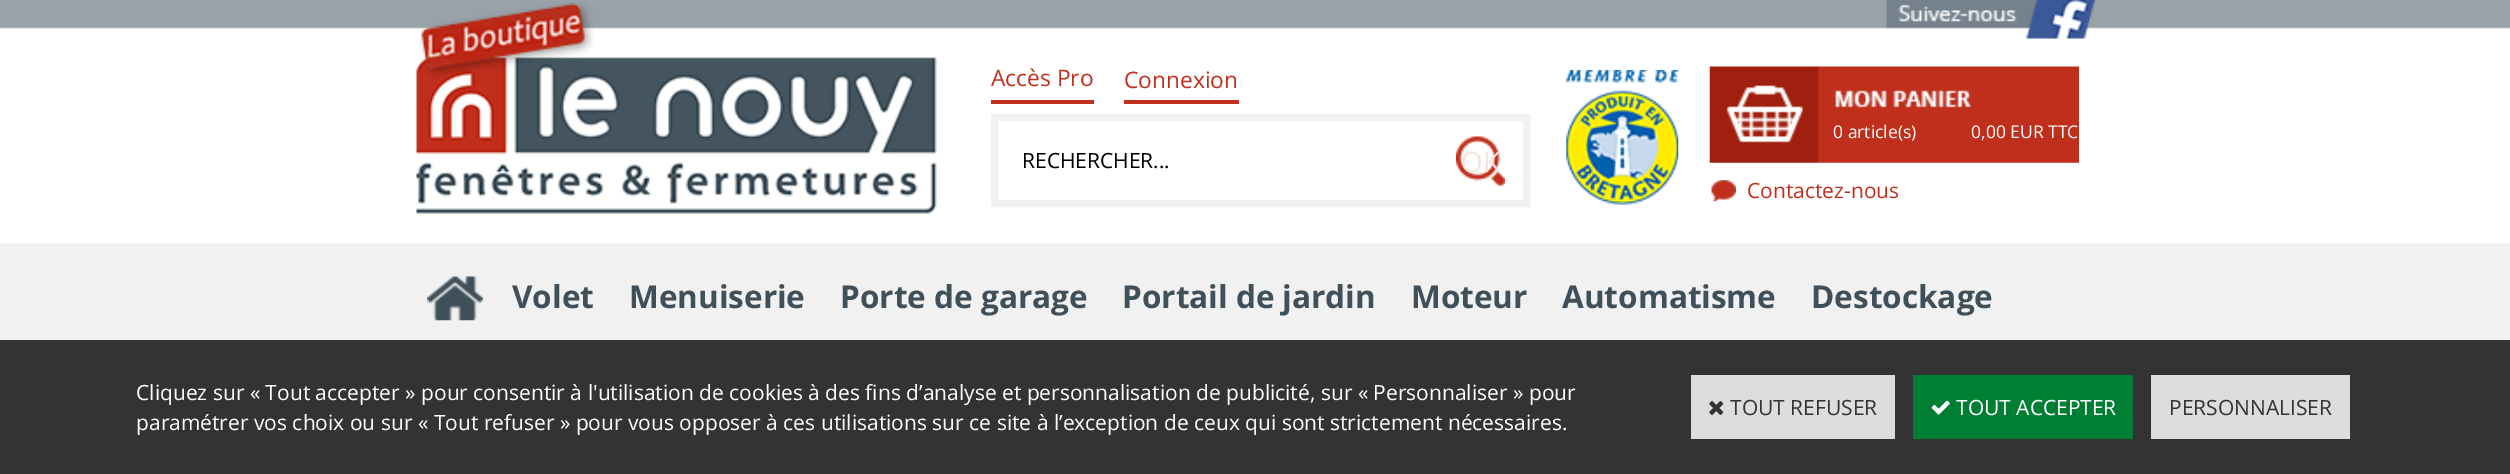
%!PS
<< /PageSize [2510 474] >> setpagedevice
/rgb { dup -16 bitshift 255 div exch dup -8 bitshift 255 and 255 div exch 255 and 255 div setrgbcolor } def
/font { [ exch dup neg 0 0 3 -1 roll 0 0 ] selectfont } def
/text { moveto show } def
/picture { 5 dict begin { /h /w /y /x /name } { exch def } forall
  gsave x y translate w h scale
  w h 8 [w 0 0 h 0 0] name (r) file false 3 colorimage grestore end } def
0 474 translate 1 -1 scale
4 setmiterlimit
/s1 { /OpenSans-Regular 22.75 font 16#C02F1C rgb } def
/s2 { /OpenSans-Regular 21 font 16#000000 rgb } def
/s3 { /OpenSans-Regular 28 font 16#F7E4E2 rgb } def
/s4 { /OpenSans-Regular 17.5 font 16#FFFFFF rgb } def
/s5 { /OpenSans-Regular 21 font 16#C02F1C rgb } def
/s6 { /OpenSans-Bold 31.5 font 16#40505A rgb } def
/s7 { /OpenSans-Regular 21 font 16#FFFFFF rgb } def
/s8 { /OpenSans-Regular 21 font 16#333333 rgb } def
16#FFFFFF rgb
0 0 2510 474 rectfill
(pic1.raw) 0 0 2510 340 picture
(pic2.raw) 416 2 521 212 picture
(pic3.raw) 427 276 56 45 picture
16#C02F1C rgb
991 100 103 4 rectfill
s1
(Accès Pro) 991 86 text
1124 100 115 4 rectfill
(Connexion) 1124 88 text
16#F1F1F1 rgb
7 setlinewidth
994.5 117.5 532 86 rectstroke
s2
(RECHERCHER...) 1022 168 text
(pic4.raw) 1456 136 49 50 picture
s3
(OK) 1461 172 text
(pic5.raw) 1566 70 113 135 picture
(pic6.raw) 1886 0 209 39 picture
(pic7.raw) 1709 66 370 97 picture
s4
(0 article\(s\)) 1833 138 text
(0,00 EUR TTC) 1971 138 text
(pic8.raw) 1711 180 25 22 picture
s5
(Contactez-nous) 1747 198 text
s6
(Volet) 512 308 text
(Menuiserie) 629 308 text
(Porte de garage) 840 308 text
(Portail de jardin) 1122 308 text
(Moteur) 1411 308 text
(Automatisme) 1562 308 text
(Destockage) 1811 308 text
16#333333 rgb
0 340 2510 134 rectfill
s7
(Cliquez sur « Tout accepter » pour consentir à l'utilisation de cookies à des fins d’analyse et personnalisation de publicité, sur « Personnaliser » pour) 136 400 text
(paramétrer vos choix ou sur « Tout refuser » pour vous opposer à ces utilisations sur ce site à l’exception de ceux qui sont strictement nécessaires.) 136 430 text
16#DDDDDD rgb
1691 375 204 64 rectfill
(pic9.raw) 1709 401 15 14 picture
s8
(TOUT REFUSER) 1730 415 text
16#007E33 rgb
1913 375 220 64 rectfill
(pic10.raw) 1931 400 19 15 picture
s7
(TOUT ACCEPTER) 1956 415 text
16#DDDDDD rgb
2151 375 199 64 rectfill
s8
(PERSONNALISER) 2169 415 text
showpage
